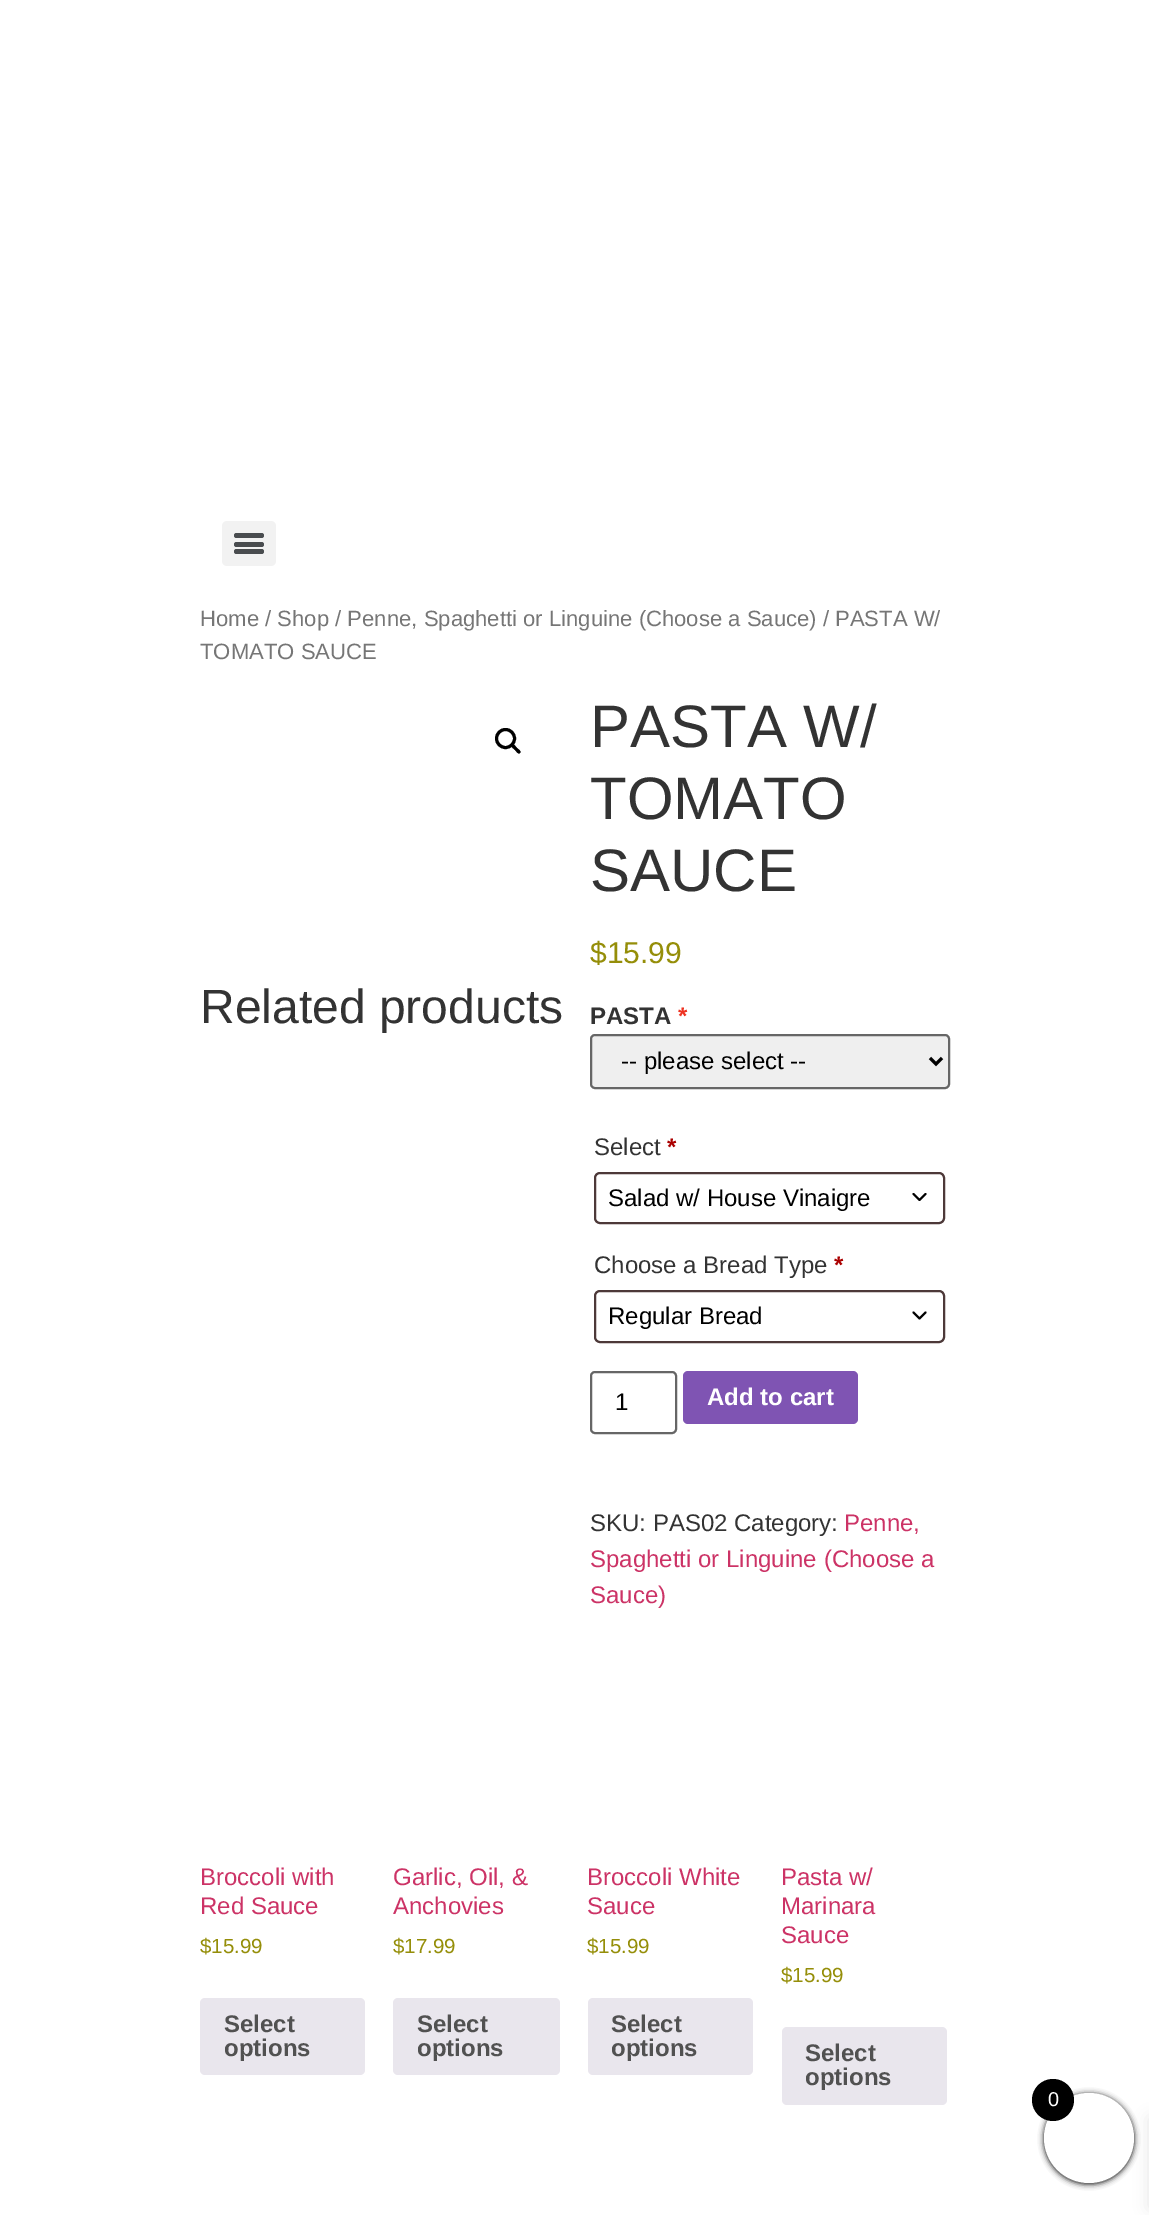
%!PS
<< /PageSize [1149 2215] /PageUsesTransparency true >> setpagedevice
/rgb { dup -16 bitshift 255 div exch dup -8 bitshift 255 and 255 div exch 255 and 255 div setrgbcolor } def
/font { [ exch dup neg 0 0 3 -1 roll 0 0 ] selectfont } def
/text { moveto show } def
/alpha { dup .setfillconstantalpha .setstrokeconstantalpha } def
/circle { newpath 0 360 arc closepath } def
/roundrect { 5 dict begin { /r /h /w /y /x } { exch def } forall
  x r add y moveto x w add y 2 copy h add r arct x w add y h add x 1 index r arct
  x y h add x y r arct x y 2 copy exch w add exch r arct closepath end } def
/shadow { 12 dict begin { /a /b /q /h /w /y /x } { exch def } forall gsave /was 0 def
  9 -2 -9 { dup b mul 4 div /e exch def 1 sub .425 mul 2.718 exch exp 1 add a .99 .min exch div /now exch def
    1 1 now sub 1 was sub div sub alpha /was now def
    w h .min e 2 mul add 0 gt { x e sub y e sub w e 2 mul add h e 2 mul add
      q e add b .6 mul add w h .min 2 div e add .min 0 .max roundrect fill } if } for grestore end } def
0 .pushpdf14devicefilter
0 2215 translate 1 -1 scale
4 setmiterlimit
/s1 { /LiberationSans-Regular 22.1 font 16#767676 rgb } def
/s2 { /LiberationSans-Regular 60 font 16#333333 rgb } def
/s3 { /LiberationSans-Regular 30 font 16#958E09 rgb } def
/s4 { /LiberationSans-Bold 24 font 16#333333 rgb } def
/s5 { /LiberationSans-Bold 24 font 16#EE3322 rgb } def
/s6 { /LiberationSans-Regular 24 font 16#000000 rgb } def
/s7 { /LiberationSans-Regular 24 font 16#333333 rgb } def
/s8 { /LiberationSans-Bold 24 font 16#AA0000 rgb } def
/s9 { /LiberationSans-Bold 24 font 16#FFFFFF rgb } def
/s10 { /LiberationSans-Regular 24 font 16#CC3366 rgb } def
/s11 { /LiberationSans-Regular 48 font 16#333333 rgb } def
/s12 { /LiberationSans-Regular 20.5 font 16#958E09 rgb } def
/s13 { /LiberationSans-Bold 24 font 16#515151 rgb } def
/s14 { /LiberationSans-Regular 20 font 16#FFFFFF rgb } def
16#FFFFFF rgb
0 0 1149 2215 rectfill
16#F2F2F2 rgb
222 521 54 45 5 roundrect fill
16#494C4F rgb
234 542 30 5 2.5 roundrect fill
234 533 30 5 2.5 roundrect fill
234 549 30 5 2.5 roundrect fill
s1
(Home / Shop / Penne, Spaghetti or Linguine \(Choose a Sauce\) / PASTA W/) 200 626 text
(TOMATO SAUCE) 200 659 text
16#000000 rgb
3 setlinewidth
505.5 738.5 9 circle stroke
512 744.5 moveto 513.5 743 516 747 517 748 curveto 518 749 522 751.5 520 753 curveto 518.5 755 516 751 515 750 curveto 514 749 510 746.5 512 744.5 curveto closepath fill
s2
(PASTA W/) 590 747 text
(TOMATO) 590 819 text
(SAUCE) 590 891 text
s3
($15.99) 590 963 text
s4
(PASTA) 590 1024 text
s5
(*) 678 1024 text
16#EFEFEF rgb
591 1035 358 53 4 roundrect gsave fill grestore
16#666666 rgb
2 setlinewidth
stroke
16#000000 rgb
3 setlinewidth
930 1058 moveto 936 1064 lineto 942 1058 lineto stroke
s6
(-- please select --) 621 1069 text
s7
(Select) 594 1155 text
s8
(*) 667 1155 text
16#000000 rgb
2 setlinewidth
1 setlinecap
1 setlinejoin
913.5 1194 moveto 919.5 1200 lineto 925.5 1194 lineto stroke
16#4D3939 rgb
0 setlinecap
0 setlinejoin
595 1173 349 50 5 roundrect stroke
s6
(Salad w/ House Vinaigre) 608 1206 text
s7
(Choose a Bread Type) 594 1273 text
s8
(*) 834 1273 text
16#000000 rgb
1 setlinecap
1 setlinejoin
913.5 1312.5 moveto 919.5 1318.5 lineto 925.5 1312.5 lineto stroke
16#4D3939 rgb
0 setlinecap
0 setlinejoin
595 1291 349 51 5 roundrect stroke
s6
(Regular Bread) 608 1324 text
16#666666 rgb
591 1372 85 61 4 roundrect stroke
s6
(1) 615 1410 text
16#7F54B3 rgb
683 1371 175 53 5 roundrect fill
s9
(Add to cart) 707 1405 text
s7
(SKU: PAS02 Category:) 590 1531 text
s10
(Penne,) 844 1531 text
(Spaghetti or Linguine \(Choose a) 590 1567 text
(Sauce\)) 590 1603 text
s11
(Related products) 200 1023 text
s10
(Broccoli with) 200 1885 text
(Red Sauce) 200 1914 text
s12
($15.99) 200 1953 text
16#E9E6ED rgb
200 1998 165 77 5 roundrect fill
s13
(Select) 224 2032 text
(options) 224 2056 text
s10
(Garlic, Oil, &) 393 1885 text
(Anchovies) 393 1914 text
s12
($17.99) 393 1953 text
16#E9E6ED rgb
393 1998 167 77 5 roundrect fill
s13
(Select) 417 2032 text
(options) 417 2056 text
s10
(Broccoli White) 587 1885 text
(Sauce) 587 1914 text
s12
($15.99) 587 1953 text
16#E9E6ED rgb
588 1998 165 77 5 roundrect fill
s13
(Select) 611 2032 text
(options) 611 2056 text
s10
(Pasta w/) 781 1885 text
(Marinara) 781 1914 text
(Sauce) 781 1943 text
s12
($15.99) 781 1982 text
16#E9E6ED rgb
782 2027 165 78 5 roundrect fill
s13
(Select) 805 2061 text
(options) 805 2085 text
16#000000 rgb
1044 2094 90 90 45 3 1 shadow
1149 2118 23 90 0 7.5 0.1 shadow
16#FFFFFF rgb
1089 2138 45 circle fill
16#000000 rgb
1053 2100 21 circle fill
s14
(0) 1048 2106 text
.poppdf14devicefilter showpage
